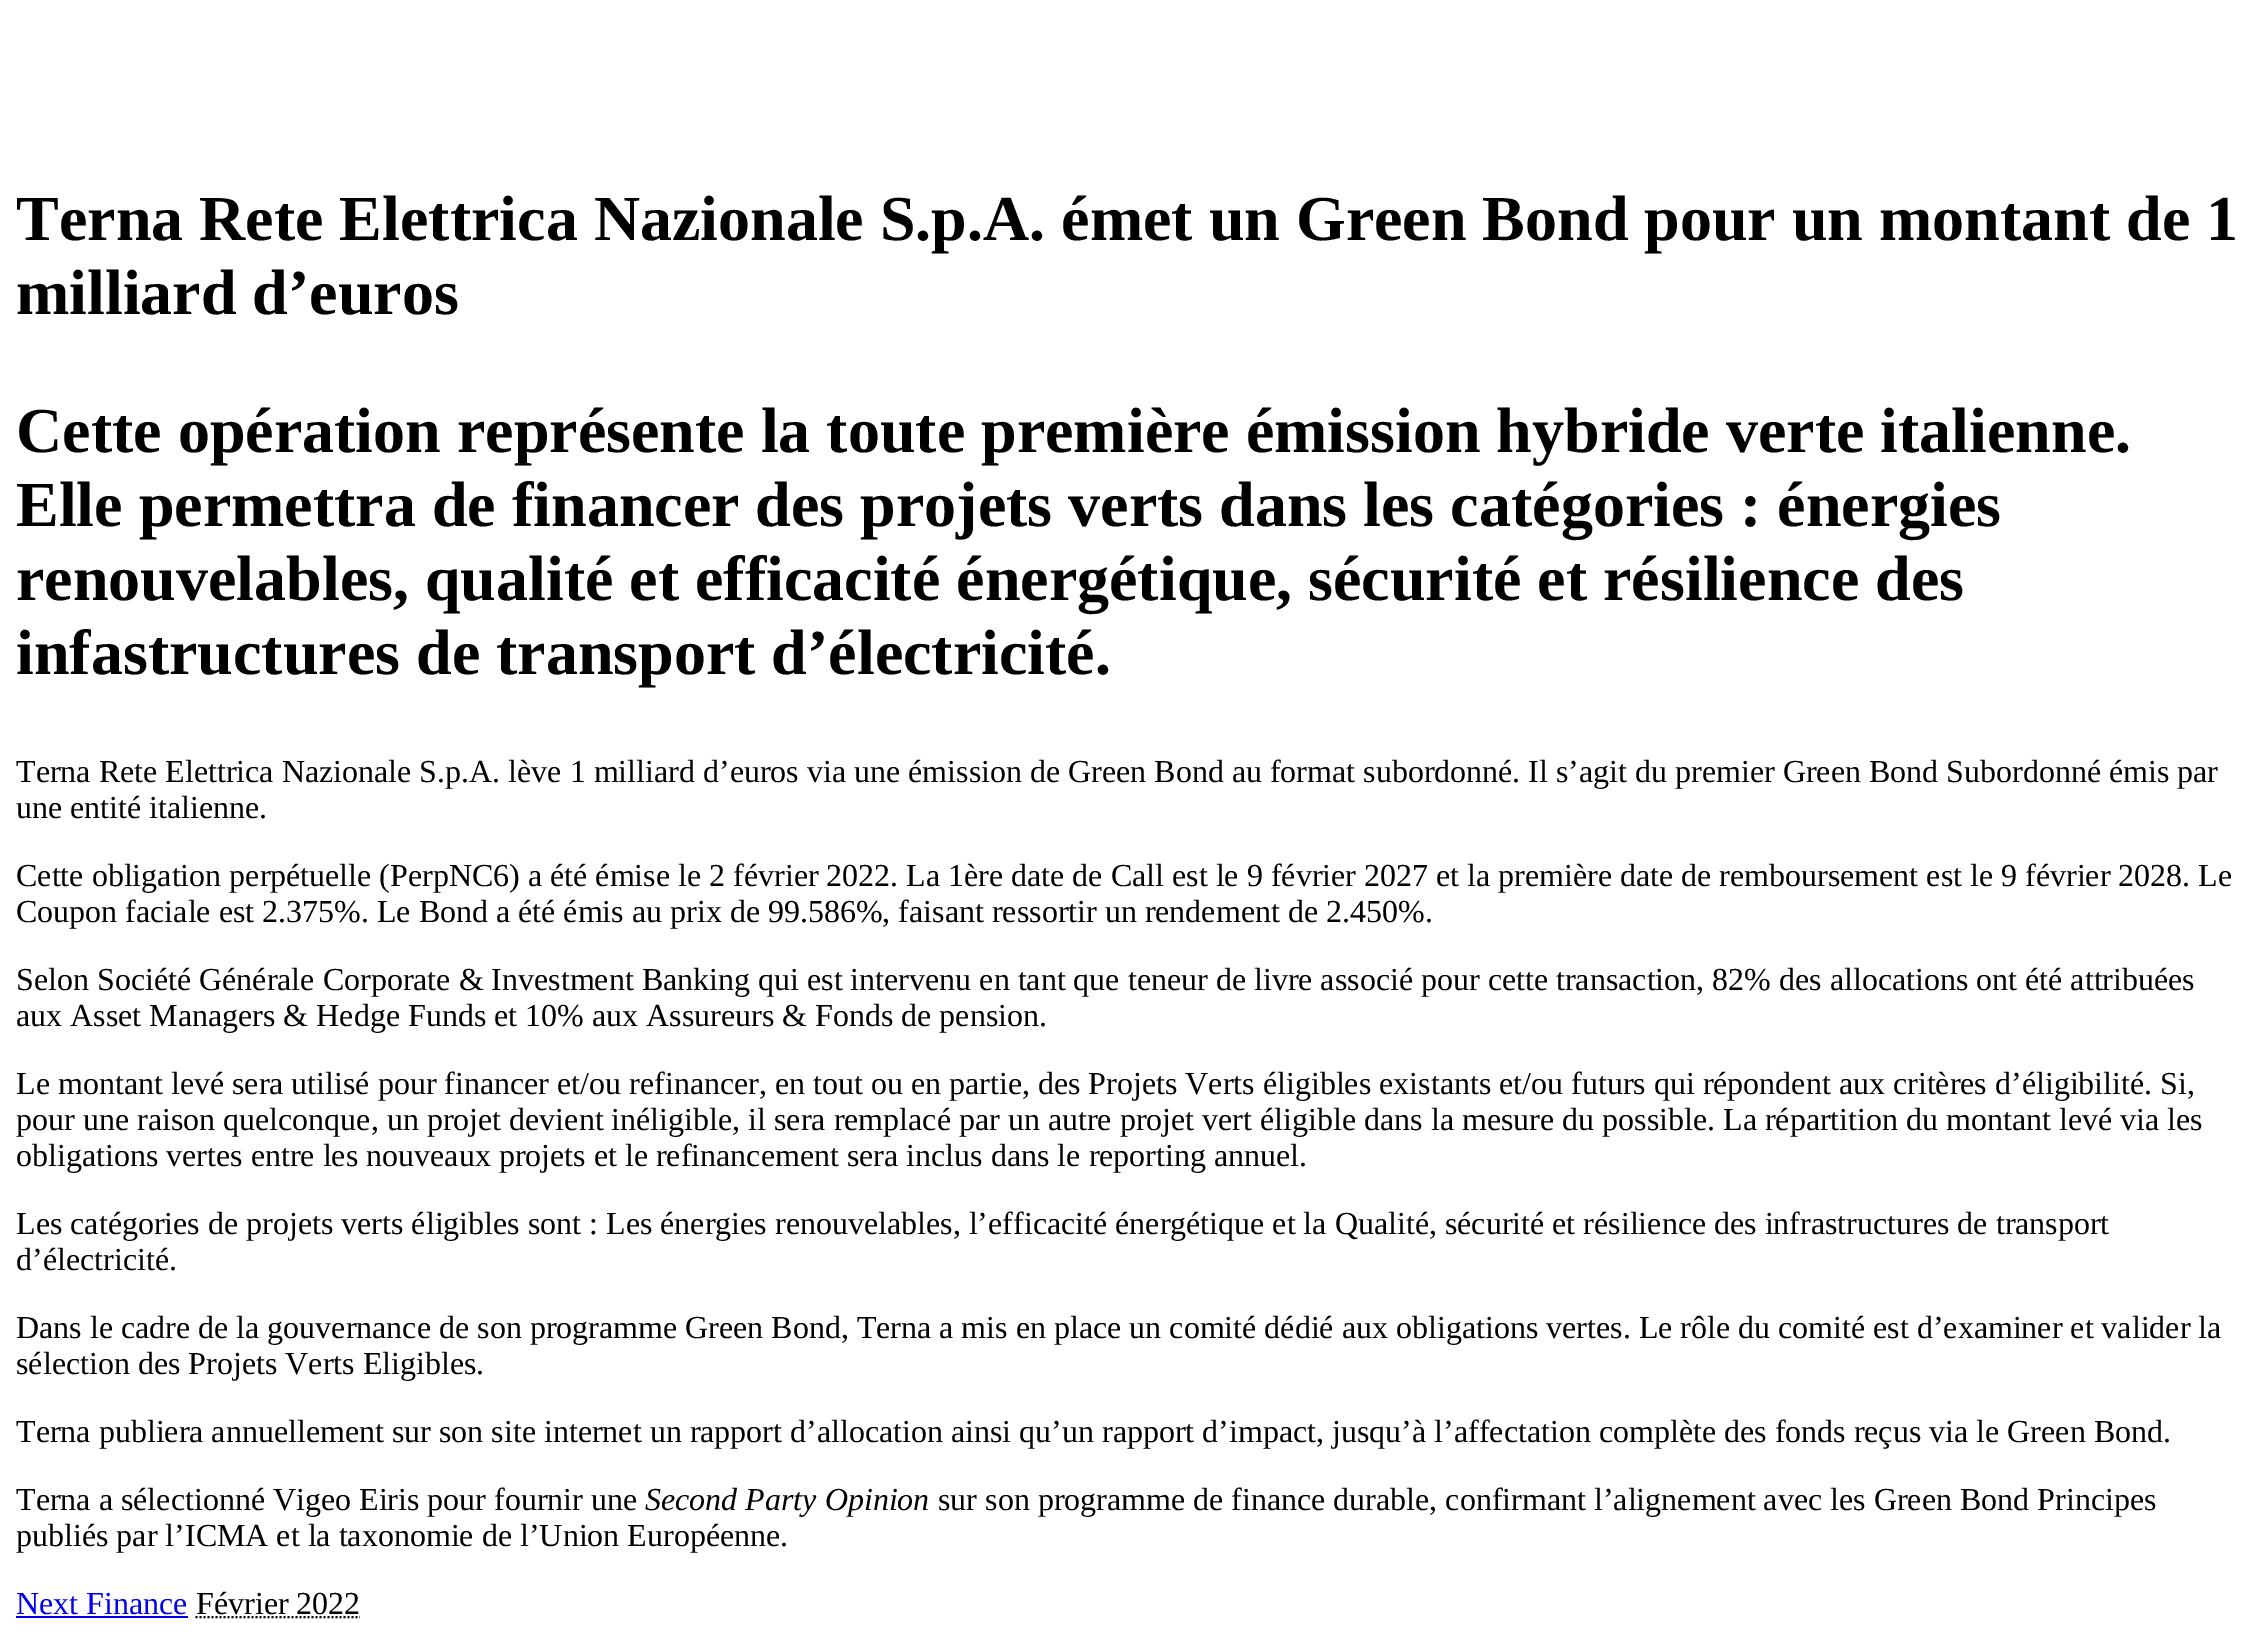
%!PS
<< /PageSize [2264 1645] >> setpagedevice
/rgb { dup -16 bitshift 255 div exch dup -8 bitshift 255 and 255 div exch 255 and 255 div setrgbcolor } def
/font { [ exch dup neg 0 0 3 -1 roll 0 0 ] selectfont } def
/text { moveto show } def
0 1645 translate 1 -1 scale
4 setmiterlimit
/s1 { /LiberationSerif-Bold 64 font 16#000000 rgb } def
/s2 { /LiberationSerif-Regular 32 font 16#000000 rgb } def
/s3 { /LiberationSerif-Italic 32 font 16#000000 rgb } def
/s4 { /LiberationSerif-Regular 32 font 16#0000EE rgb } def
16#FFFFFF rgb
0 0 2264 1645 rectfill
s1
(Terna Rete Elettrica Nazionale S.p.A. émet un Green Bond pour un montant de 1) 16 240 text
(milliard d’euros) 16 314 text
(Cette opération représente la toute première émission hybride verte italienne.) 16 452 text
(Elle permettra de financer des projets verts dans les catégories : énergies) 16 526 text
(renouvelables, qualité et efficacité énergétique, sécurité et résilience des) 16 600 text
(infastructures de transport d’électricité.) 16 674 text
s2
(Terna Rete Elettrica Nazionale S.p.A. lève 1 milliard d’euros via une émission de Green Bond au format subordonné. Il s’agit du premier Green Bond Subordonné émis par) 16 782 text
(une entité italienne.) 16 818 text
(Cette obligation perpétuelle \(PerpNC6\) a été émise le 2 février 2022. La 1ère date de Call est le 9 février 2027 et la première date de remboursement est le 9 février 2028. Le) 16 886 text
(Coupon faciale est 2.375%. Le Bond a été émis au prix de 99.586%, faisant ressortir un rendement de 2.450%.) 16 922 text
(Selon Société Générale Corporate & Investment Banking qui est intervenu en tant que teneur de livre associé pour cette transaction, 82% des allocations ont été attribuées) 16 990 text
(aux Asset Managers & Hedge Funds et 10% aux Assureurs & Fonds de pension.) 16 1026 text
(Le montant levé sera utilisé pour financer et/ou refinancer, en tout ou en partie, des Projets Verts éligibles existants et/ou futurs qui répondent aux critères d’éligibilité. Si,) 16 1094 text
(pour une raison quelconque, un projet devient inéligible, il sera remplacé par un autre projet vert éligible dans la mesure du possible. La répartition du montant levé via les) 16 1130 text
(obligations vertes entre les nouveaux projets et le refinancement sera inclus dans le reporting annuel.) 16 1166 text
(Les catégories de projets verts éligibles sont : Les énergies renouvelables, l’efficacité énergétique et la Qualité, sécurité et résilience des infrastructures de transport) 16 1234 text
(d’électricité.) 16 1270 text
(Dans le cadre de la gouvernance de son programme Green Bond, Terna a mis en place un comité dédié aux obligations vertes. Le rôle du comité est d’examiner et valider la) 16 1338 text
(sélection des Projets Verts Eligibles.) 16 1374 text
(Terna publiera annuellement sur son site internet un rapport d’allocation ainsi qu’un rapport d’impact, jusqu’à l’affectation complète des fonds reçus via le Green Bond.) 16 1442 text
(Terna a sélectionné Vigeo Eiris pour fournir une) 16 1510 text
s3
(Second Party Opinion) 645 1510 text
s2
(sur son programme de finance durable, confirmant l’alignement avec les Green Bond Principes) 938 1510 text
(publiés par l’ICMA et la taxonomie de l’Union Européenne.) 16 1546 text
s4
(Next Finance) 16 1614 text
16 1616 172 2 rectfill
s2
(Février 2022) 196 1614 text
2 setlinewidth
[2 2] 0 setdash
195.5 1617 moveto 360 1617 lineto stroke
showpage
